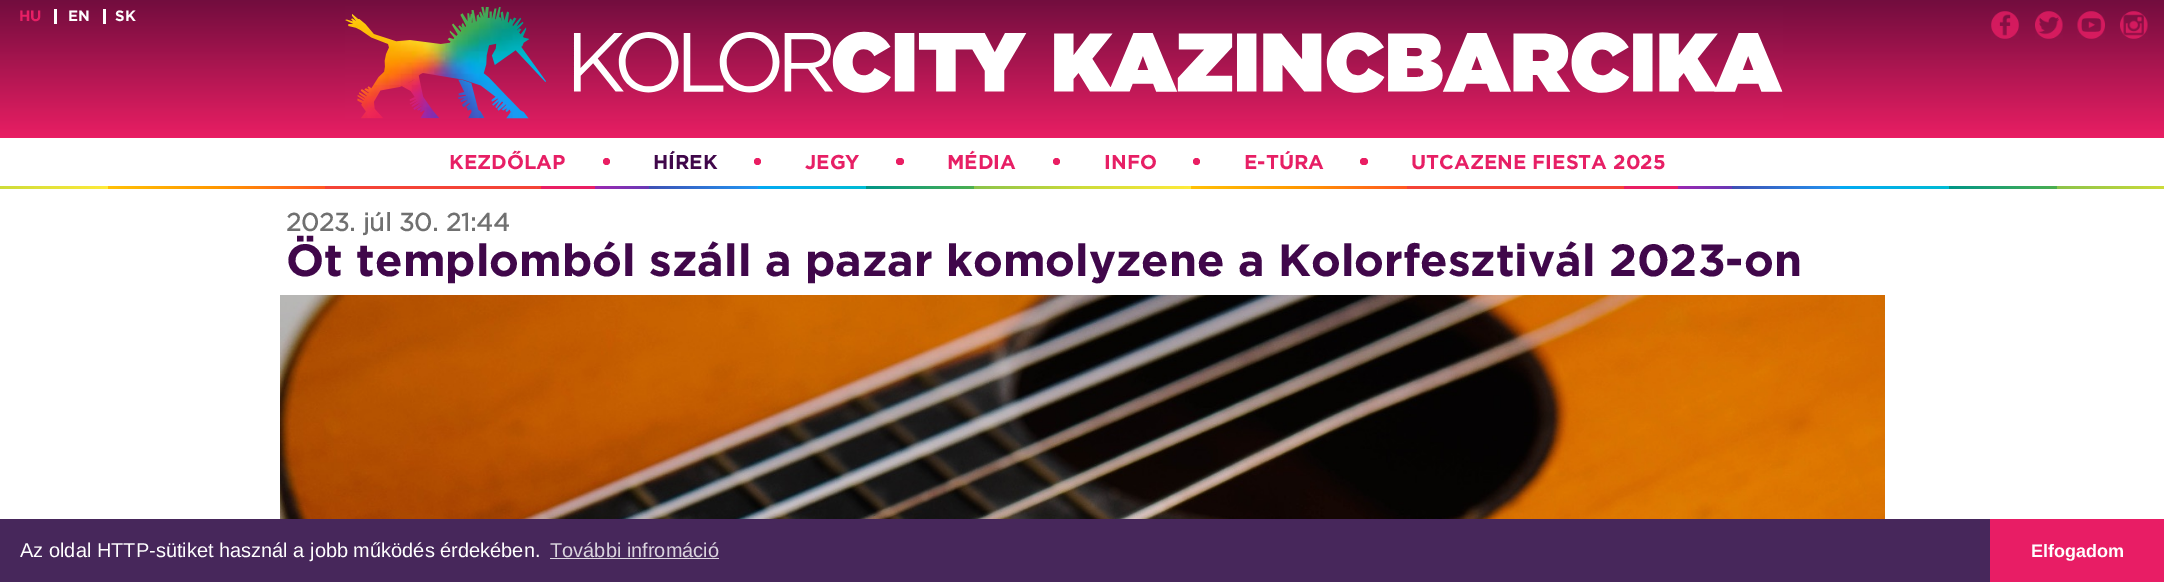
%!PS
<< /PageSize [2164 582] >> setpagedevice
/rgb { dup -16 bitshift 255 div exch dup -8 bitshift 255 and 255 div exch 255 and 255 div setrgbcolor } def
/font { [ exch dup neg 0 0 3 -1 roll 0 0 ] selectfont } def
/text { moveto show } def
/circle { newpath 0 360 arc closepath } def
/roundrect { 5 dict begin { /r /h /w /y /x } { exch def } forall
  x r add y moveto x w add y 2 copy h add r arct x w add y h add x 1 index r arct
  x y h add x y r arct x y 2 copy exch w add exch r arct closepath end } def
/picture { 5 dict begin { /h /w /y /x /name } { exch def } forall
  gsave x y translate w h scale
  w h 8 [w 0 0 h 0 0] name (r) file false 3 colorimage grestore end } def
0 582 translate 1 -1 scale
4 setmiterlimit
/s1 { /Gotham-Bold 15 font 16#E71F65 rgb } def
/s2 { /Gotham-Bold 15 font 16#FFFFFF rgb } def
/s3 { /Gotham-Bold 20 font 16#E71F65 rgb } def
/s4 { /Gotham-Bold 20 font 16#40074A rgb } def
/s5 { /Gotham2-Bold 25 font 16#707070 rgb } def
/s6 { /Gotham-Bold 45 font 16#40074A rgb } def
/s7 { /LiberationSans-Regular 20 font 16#FFFFFF rgb } def
/s8 { /LiberationSans-Regular 20 font 16#DAD4DE rgb } def
/s9 { /LiberationSans-Bold 18 font 16#FFFFFF rgb } def
16#FFFFFF rgb
0 0 2164 582 rectfill
gsave 0 0 moveto 2164 0 lineto 2164 138 lineto 0 138 lineto closepath clip newpath
<< /ShadingType 2 /ColorSpace /DeviceRGB /Coords [1083 0 1083 138] /Extend [true true] /Function << /FunctionType 3 /Domain [0 1] /Functions [<< /FunctionType 2 /Domain [0 1] /C0 [0.447 0.051 0.243] /C1 [0.631 0.078 0.302] /N 1 >> << /FunctionType 2 /Domain [0 1] /C0 [0.631 0.078 0.302] /C1 [0.82 0.106 0.361] /N 1 >> << /FunctionType 2 /Domain [0 1] /C0 [0.82 0.106 0.361] /C1 [0.914 0.118 0.388] /N 1 >>] /Bounds [0.4 0.8] /Encode [0 1 0 1 0 1] >> >> shfill grestore
s1
(HU) 19 21 text
16#FFFFFF rgb
54 9 3 15 rectfill
(EN) 68 21 text
103 9 3 15 rectfill
(SK) 115 21 text
(pic1.raw) 345 6 1438 113 picture
(pic2.raw) 1991 11 28 28 picture
(pic3.raw) 2035 11 28 28 picture
(pic4.raw) 2077 11 28 28 picture
(pic5.raw) 2120 11 28 28 picture
s3
(KEZDŐLAP) 449 169 text
16#E91E63 rgb
606.5 161.5 3.5 circle fill
s4
(HÍREK) 653 169 text
16#E91E63 rgb
757.5 161.5 3.5 circle fill
s3
(JEGY) 805 169 text
16#E91E63 rgb
896 158 8 7 3.5 roundrect fill
s3
(MÉDIA) 947 169 text
16#E91E63 rgb
1056.5 161.5 3.5 circle fill
s3
(INFO) 1104 169 text
16#E91E63 rgb
1196.5 161.5 3.5 circle fill
s3
(E-TÚRA) 1244 169 text
16#E91E63 rgb
1360 158 8 7 3.5 roundrect fill
s3
(UTCAZENE FIESTA 2025) 1411 169 text
gsave 0 186 moveto 541 186 lineto 541 189 lineto 0 189 lineto closepath clip newpath
<< /ShadingType 2 /ColorSpace /DeviceRGB /Coords [-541 188 541 187] /Extend [true true] /Function << /FunctionType 3 /Domain [0 1] /Functions [<< /FunctionType 2 /Domain [0 1] /C0 [0.914 0.118 0.388] /C1 [0.914 0.118 0.388] /N 1 >> << /FunctionType 2 /Domain [0 1] /C0 [0.612 0.153 0.69] /C1 [0.404 0.227 0.718] /N 1 >> << /FunctionType 2 /Domain [0 1] /C0 [0.247 0.318 0.71] /C1 [0.129 0.588 0.953] /N 1 >> << /FunctionType 2 /Domain [0 1] /C0 [0.012 0.663 0.957] /C1 [0 0.737 0.831] /N 1 >> << /FunctionType 2 /Domain [0 1] /C0 [0 0.588 0.533] /C1 [0.298 0.686 0.314] /N 1 >> << /FunctionType 2 /Domain [0 1] /C0 [0.545 0.765 0.29] /C1 [0.804 0.863 0.224] /N 1 >> << /FunctionType 2 /Domain [0 1] /C0 [0.804 0.863 0.224] /C1 [1 0.922 0.231] /N 1 >> << /FunctionType 2 /Domain [0 1] /C0 [1 0.757 0.027] /C1 [1 0.596 0] /N 1 >> << /FunctionType 2 /Domain [0 1] /C0 [1 0.596 0] /C1 [1 0.341 0.133] /N 1 >> << /FunctionType 2 /Domain [0 1] /C0 [0.957 0.263 0.212] /C1 [0.957 0.263 0.212] /N 1 >>] /Bounds [0.05 0.1 0.2 0.3 0.4 0.5 0.6 0.7 0.8] /Encode [0 1 0 1 0 1 0 1 0 1 0 1 0 1 0 1 0 1 0 1] >> >> shfill grestore
gsave 541 186 moveto 1624 186 lineto 1624 189 lineto 541 189 lineto closepath clip newpath
<< /ShadingType 2 /ColorSpace /DeviceRGB /Coords [541 188 1624 187] /Extend [true true] /Function << /FunctionType 3 /Domain [0 1] /Functions [<< /FunctionType 2 /Domain [0 1] /C0 [0.914 0.118 0.388] /C1 [0.914 0.118 0.388] /N 1 >> << /FunctionType 2 /Domain [0 1] /C0 [0.612 0.153 0.69] /C1 [0.404 0.227 0.718] /N 1 >> << /FunctionType 2 /Domain [0 1] /C0 [0.247 0.318 0.71] /C1 [0.129 0.588 0.953] /N 1 >> << /FunctionType 2 /Domain [0 1] /C0 [0.012 0.663 0.957] /C1 [0 0.737 0.831] /N 1 >> << /FunctionType 2 /Domain [0 1] /C0 [0 0.588 0.533] /C1 [0.298 0.686 0.314] /N 1 >> << /FunctionType 2 /Domain [0 1] /C0 [0.545 0.765 0.29] /C1 [0.804 0.863 0.224] /N 1 >> << /FunctionType 2 /Domain [0 1] /C0 [0.804 0.863 0.224] /C1 [1 0.922 0.231] /N 1 >> << /FunctionType 2 /Domain [0 1] /C0 [1 0.757 0.027] /C1 [1 0.596 0] /N 1 >> << /FunctionType 2 /Domain [0 1] /C0 [1 0.596 0] /C1 [1 0.341 0.133] /N 1 >> << /FunctionType 2 /Domain [0 1] /C0 [0.957 0.263 0.212] /C1 [0.957 0.263 0.212] /N 1 >>] /Bounds [0.05 0.1 0.2 0.3 0.4 0.5 0.6 0.7 0.8] /Encode [0 1 0 1 0 1 0 1 0 1 0 1 0 1 0 1 0 1 0 1] >> >> shfill grestore
gsave 1624 186 moveto 2164 186 lineto 2164 189 lineto 1624 189 lineto closepath clip newpath
<< /ShadingType 2 /ColorSpace /DeviceRGB /Coords [1624 188 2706 187] /Extend [true true] /Function << /FunctionType 3 /Domain [0 1] /Functions [<< /FunctionType 2 /Domain [0 1] /C0 [0.914 0.118 0.388] /C1 [0.914 0.118 0.388] /N 1 >> << /FunctionType 2 /Domain [0 1] /C0 [0.612 0.153 0.69] /C1 [0.404 0.227 0.718] /N 1 >> << /FunctionType 2 /Domain [0 1] /C0 [0.247 0.318 0.71] /C1 [0.129 0.588 0.953] /N 1 >> << /FunctionType 2 /Domain [0 1] /C0 [0.012 0.663 0.957] /C1 [0 0.737 0.831] /N 1 >> << /FunctionType 2 /Domain [0 1] /C0 [0 0.588 0.533] /C1 [0.298 0.686 0.314] /N 1 >> << /FunctionType 2 /Domain [0 1] /C0 [0.545 0.765 0.29] /C1 [0.804 0.863 0.224] /N 1 >> << /FunctionType 2 /Domain [0 1] /C0 [0.804 0.863 0.224] /C1 [1 0.922 0.231] /N 1 >> << /FunctionType 2 /Domain [0 1] /C0 [1 0.757 0.027] /C1 [1 0.596 0] /N 1 >> << /FunctionType 2 /Domain [0 1] /C0 [1 0.596 0] /C1 [1 0.341 0.133] /N 1 >> << /FunctionType 2 /Domain [0 1] /C0 [0.957 0.263 0.212] /C1 [0.957 0.263 0.212] /N 1 >>] /Bounds [0.05 0.1 0.2 0.3 0.4 0.5 0.6 0.7 0.8] /Encode [0 1 0 1 0 1 0 1 0 1 0 1 0 1 0 1 0 1 0 1] >> >> shfill grestore
s5
(2023. júl 30. 21:44) 286 231 text
s6
(Öt templomból száll a pazar komolyzene a Kolorfesztivál 2023-on) 286 276 text
(pic6.raw) 280 295 1605 224 picture
16#47275B rgb
0 519 1990 63 rectfill
s7
(Az oldal HTTP-sütiket használ a jobb működés érdekében.) 20 557 text
s8
(További infromáció) 550 557 text
550 558 169 1 rectfill
16#E81D65 rgb
1990 519 174 63 rectfill
s9
(Elfogadom) 2031 557 text
showpage
